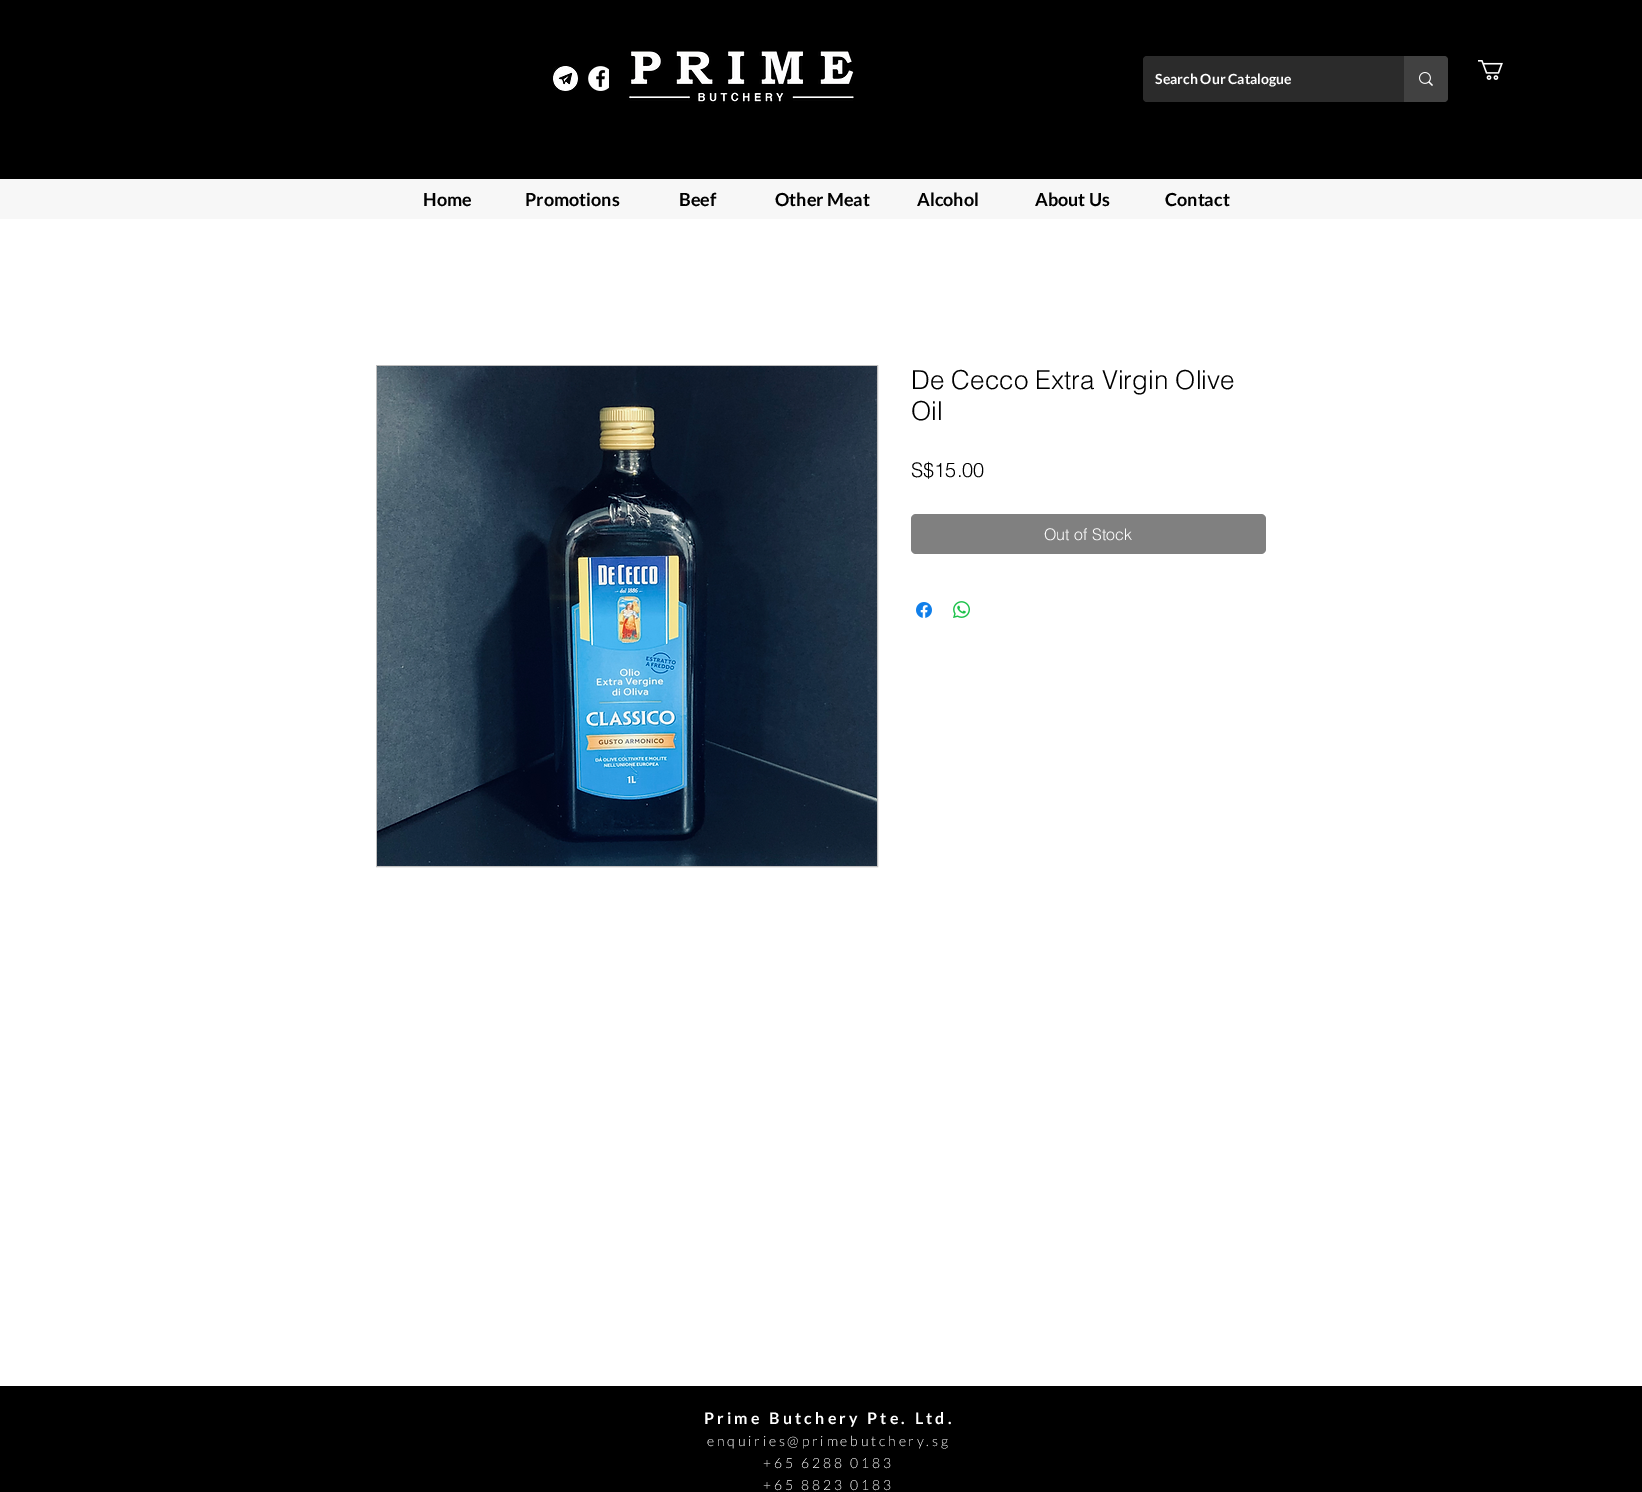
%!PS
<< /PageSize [1642 1492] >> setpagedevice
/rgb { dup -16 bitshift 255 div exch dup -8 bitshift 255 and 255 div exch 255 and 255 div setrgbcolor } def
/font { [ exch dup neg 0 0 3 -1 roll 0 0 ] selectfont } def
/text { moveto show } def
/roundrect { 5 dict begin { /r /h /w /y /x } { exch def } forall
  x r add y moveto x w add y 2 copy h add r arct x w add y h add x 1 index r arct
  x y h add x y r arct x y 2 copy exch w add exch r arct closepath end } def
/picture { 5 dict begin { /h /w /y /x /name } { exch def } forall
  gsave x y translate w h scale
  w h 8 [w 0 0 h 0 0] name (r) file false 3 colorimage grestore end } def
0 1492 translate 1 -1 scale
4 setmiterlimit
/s1 { /Lato-Bold 14 font 16#FFFFFF rgb } def
/s2 { /Lato-Bold 18 font 16#000000 rgb } def
/s3 { /helvetica-Light 26 font 16#000000 rgb } def
/s4 { /helvetica-Light 20 font 16#000000 rgb } def
/s5 { /helvetica-Light 16 font 16#FFFFFF rgb } def
16#FFFFFF rgb
0 0 1642 1492 rectfill
16#000000 rgb
0 0 1642 179 rectfill
(pic1.raw) 553 66 25 25 picture
(pic2.raw) 588 66 21 25 picture
(pic3.raw) 609 51 245 53 picture
16#2B2B2B rgb
1143 56 305 46 4 roundrect fill
s1
(Search Our Catalogue) 1155 84 text
16#414141 rgb
1404 56 moveto 1444 56 lineto 1446 56 1448 58 1448 60 curveto 1448 98 lineto 1448 100 1446 102 1444 102 curveto 1404 102 lineto closepath fill
(pic4.raw) 1419 72 14 14 picture
(pic5.raw) 1478 60 25 20 picture
16#F7F7F7 rgb
0 179 1642 40 rectfill
s2
(Home) 423 206 text
(Promotions) 525 206 text
(Beef) 679 206 text
(Other Meat) 775 206 text
(Alcohol) 917 206 text
(About Us) 1035 206 text
(Contact) 1165 206 text
16#BFBFBF rgb
376.5 365.5 501 501 rectstroke
(pic6.raw) 377 366 500 500 picture
s3
(De Cecco Extra Virgin Olive) 911 389 text
(Oil) 911 420 text
s4
(S$15.00) 911 477 text
16#808080 rgb
911 514 355 40 5 roundrect fill
s5
(Out of Stock) 1044 540 text
(pic7.raw) 916 602 16 16 picture
(pic8.raw) 953 601 17 17 picture
16#000000 rgb
0 1386 1642 106 rectfill
/Lato-Bold 16 font
16#FFFFFF rgb
704 1424 moveto 3.2 0 (Prime Butchery Pte. Ltd.) ashow
/Lato-Light 14 font
707 1446 moveto 2.8 0 (enquiries@primebutchery.sg) ashow
763 1468 moveto 2.8 0 (+65 6288 0183) ashow
763 1490 moveto 2.8 0 (+65 8823 0183) ashow
showpage
